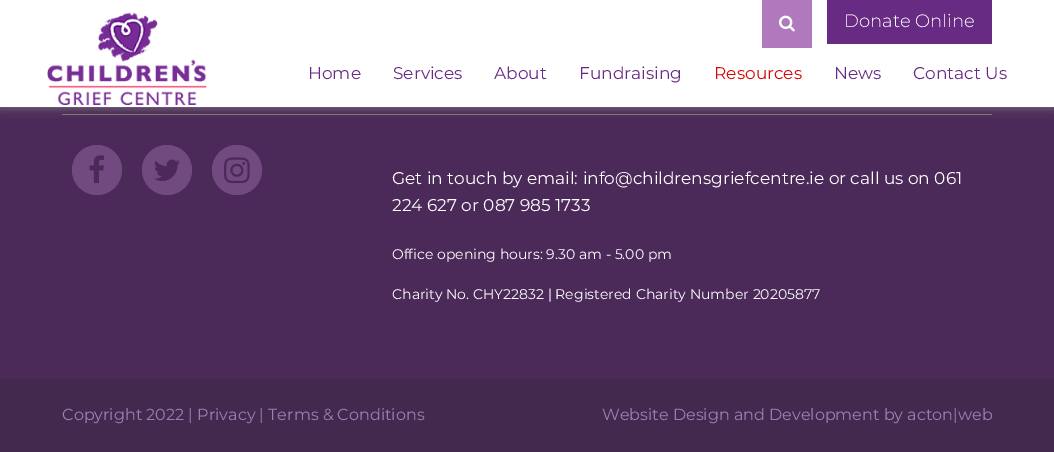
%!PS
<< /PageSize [1054 452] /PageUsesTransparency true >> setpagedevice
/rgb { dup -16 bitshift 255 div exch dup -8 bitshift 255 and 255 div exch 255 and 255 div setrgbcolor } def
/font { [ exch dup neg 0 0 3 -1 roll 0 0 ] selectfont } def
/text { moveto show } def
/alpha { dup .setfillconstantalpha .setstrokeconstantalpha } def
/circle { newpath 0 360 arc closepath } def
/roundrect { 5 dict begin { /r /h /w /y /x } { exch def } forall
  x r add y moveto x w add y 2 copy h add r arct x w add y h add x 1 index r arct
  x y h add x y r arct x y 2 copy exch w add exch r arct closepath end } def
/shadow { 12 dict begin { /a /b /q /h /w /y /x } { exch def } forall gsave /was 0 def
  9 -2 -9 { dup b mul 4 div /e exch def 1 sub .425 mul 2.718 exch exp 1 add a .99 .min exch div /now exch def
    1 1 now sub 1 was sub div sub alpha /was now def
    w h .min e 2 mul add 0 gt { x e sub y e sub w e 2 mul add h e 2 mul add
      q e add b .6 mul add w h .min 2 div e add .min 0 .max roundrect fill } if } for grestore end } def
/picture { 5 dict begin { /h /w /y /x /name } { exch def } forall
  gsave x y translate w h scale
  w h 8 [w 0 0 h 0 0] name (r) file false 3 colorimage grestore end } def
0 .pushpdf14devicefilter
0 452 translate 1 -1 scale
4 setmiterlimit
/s1 { /Montserrat-Light 18 font 16#FFFFFF rgb } def
/s2 { /Montserrat-Regular 17 font 16#682B83 rgb } def
/s3 { /Montserrat-Regular 17 font 16#D50606 rgb } def
/s4 { /Montserrat-Regular 17 font 16#FFFFFF rgb } def
/s5 { /Montserrat-Regular 14 font 16#FFFFFF rgb } def
/s6 { /Montserrat-Regular 16 font 16#A27BB3 rgb } def
16#42294D rgb
0 0 1054 452 rectfill
16#4B2A59 rgb
0 107 1054 272 rectfill
16#84786A rgb
62 114 930 1 rectfill
16#848484 rgb
0 0 1054 107 0 5 1 shadow
16#FFFFFF rgb
0 0 1054 107 rectfill
(pic1.raw) 47 12 160 93 picture
16#B079BD rgb
762 0 50 48 rectfill
(pic2.raw) 779 15 16 17 picture
16#682B83 rgb
827 0 165 44 rectfill
s1
(Donate Online) 844 27 text
s2
(Home) 308 79 text
(Services) 393 79 text
(About) 494 79 text
(Fundraising) 579 79 text
s3
(Resources) 714 79 text
s2
(News) 834 79 text
(Contact Us) 913 79 text
16#714B7F rgb
97 170 25 circle fill
(pic3.raw) 89 155 15 29 picture
167 170 25 circle fill
(pic4.raw) 154 159 26 22 picture
237 170 25 circle fill
(pic5.raw) 224 157 26 27 picture
s4
(Get in touch by email: info@childrensgriefcentre.ie or call us on 061) 392 184 text
(224 627 or 087 985 1733) 392 211 text
s5
(Office opening hours: 9.30 am - 5.00 pm) 392 259 text
(Charity No. CHY22832 | Registered Charity Number 20205877) 392 299 text
s6
(Copyright 2022 | Privacy | Terms & Conditions) 62 420 text
(Website Design and Development by acton|web) 602 420 text
.poppdf14devicefilter showpage
